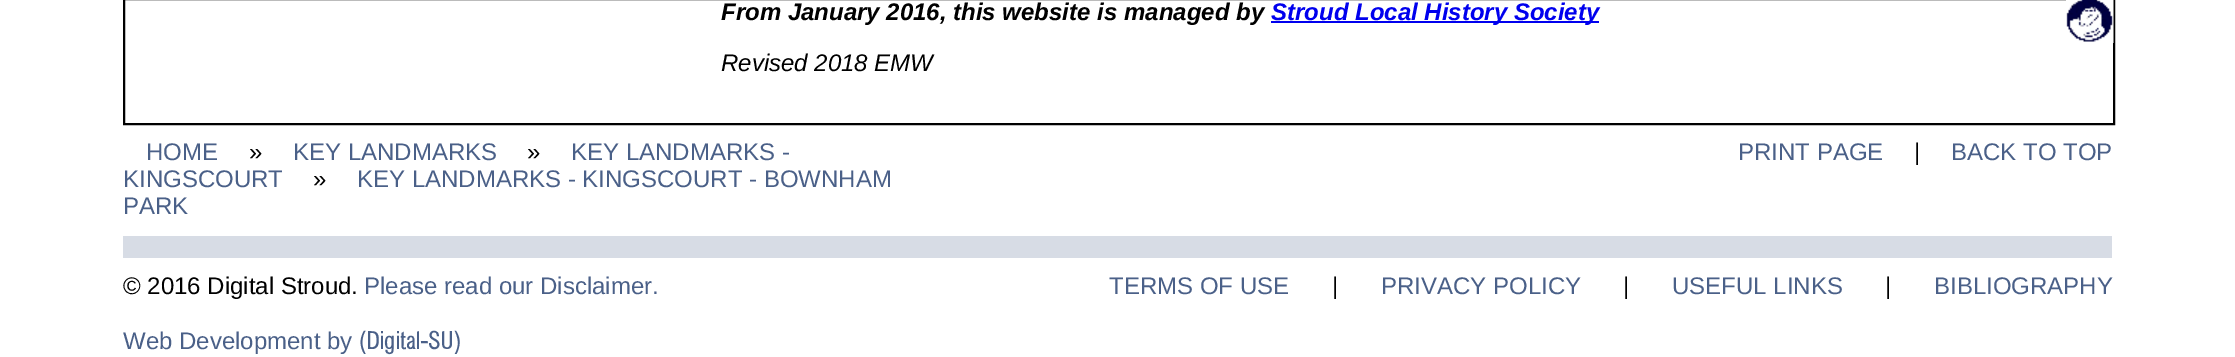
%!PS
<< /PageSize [2235 357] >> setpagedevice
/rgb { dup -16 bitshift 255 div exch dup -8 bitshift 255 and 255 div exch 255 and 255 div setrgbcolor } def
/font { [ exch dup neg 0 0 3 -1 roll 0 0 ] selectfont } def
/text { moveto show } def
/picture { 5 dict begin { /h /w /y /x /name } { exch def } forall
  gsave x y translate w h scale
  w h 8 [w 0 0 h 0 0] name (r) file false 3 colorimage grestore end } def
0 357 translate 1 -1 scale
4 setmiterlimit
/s1 { /LiberationSans-BoldItalic 24 font 16#000000 rgb } def
/s2 { /LiberationSans-BoldItalic 24 font 16#0000EE rgb } def
/s3 { /LiberationSans-Italic 24 font 16#000000 rgb } def
/s4 { /LiberationSans-Regular 24 font 16#4A6088 rgb } def
/s5 { /LiberationSans-Regular 24 font 16#000000 rgb } def
/s6 { /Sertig-Bold 24 font 16#4A6088 rgb } def
16#FFFFFF rgb
0 0 2235 357 rectfill
16#000000 rgb
2 setlinewidth
124 -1 1990 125 rectstroke
s1
(From January 2016, this website is managed by) 721 20 text
16#0000EE rgb
1271 21 328 2 rectfill
(Stroud Local History Society) 1271 20 text
(pic1.raw) 2066 0 48 43 picture
s3
(Revised 2018 EMW) 721 71 text
s4
(HOME) 146 160 text
s5
(») 249 160 text
s4
(KEY LANDMARKS) 293 160 text
s5
(») 527 160 text
s4
(KEY LANDMARKS -) 571 160 text
(KINGSCOURT) 123 187 text
s5
(») 313 187 text
s4
(KEY LANDMARKS - KINGSCOURT - BOWNHAM) 357 187 text
(PARK) 123 214 text
(PRINT PAGE) 1738 160 text
s5
(|) 1914 160 text
s4
(BACK TO TOP) 1951 160 text
16#D7DCE5 rgb
123 236 1989 22 rectfill
s5
(© 2016 Digital Stroud.) 123 294 text
s4
(Please read our Disclaimer.) 364 294 text
(Web Development by) 123 349 text
s6
(\(Digital-SU\)) 359 349 text
s4
(TERMS OF USE) 1109 294 text
s5
(|) 1332 294 text
s4
(PRIVACY POLICY) 1381 294 text
s5
(|) 1623 294 text
s4
(USEFUL LINKS) 1672 294 text
s5
(|) 1885 294 text
s4
(BIBLIOGRAPHY) 1934 294 text
showpage
